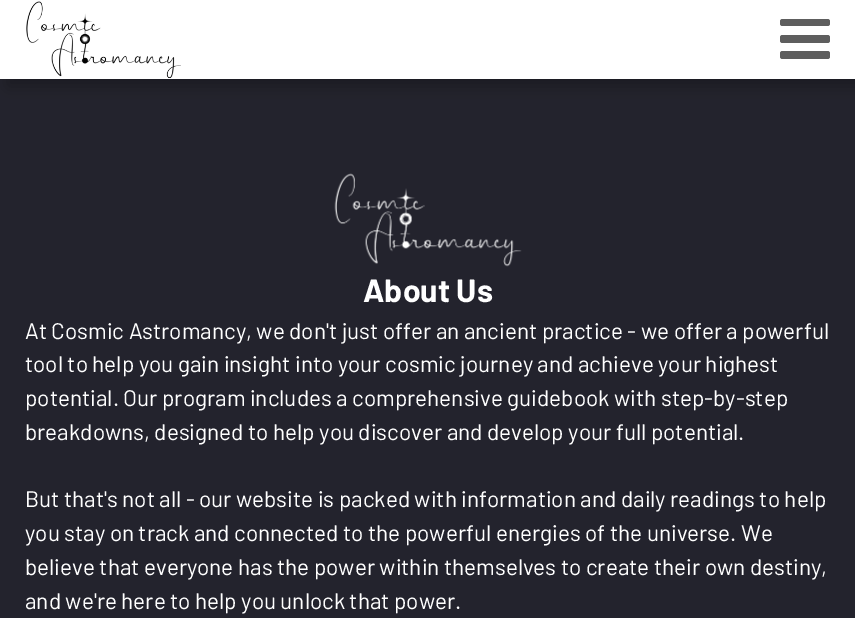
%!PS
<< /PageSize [855 618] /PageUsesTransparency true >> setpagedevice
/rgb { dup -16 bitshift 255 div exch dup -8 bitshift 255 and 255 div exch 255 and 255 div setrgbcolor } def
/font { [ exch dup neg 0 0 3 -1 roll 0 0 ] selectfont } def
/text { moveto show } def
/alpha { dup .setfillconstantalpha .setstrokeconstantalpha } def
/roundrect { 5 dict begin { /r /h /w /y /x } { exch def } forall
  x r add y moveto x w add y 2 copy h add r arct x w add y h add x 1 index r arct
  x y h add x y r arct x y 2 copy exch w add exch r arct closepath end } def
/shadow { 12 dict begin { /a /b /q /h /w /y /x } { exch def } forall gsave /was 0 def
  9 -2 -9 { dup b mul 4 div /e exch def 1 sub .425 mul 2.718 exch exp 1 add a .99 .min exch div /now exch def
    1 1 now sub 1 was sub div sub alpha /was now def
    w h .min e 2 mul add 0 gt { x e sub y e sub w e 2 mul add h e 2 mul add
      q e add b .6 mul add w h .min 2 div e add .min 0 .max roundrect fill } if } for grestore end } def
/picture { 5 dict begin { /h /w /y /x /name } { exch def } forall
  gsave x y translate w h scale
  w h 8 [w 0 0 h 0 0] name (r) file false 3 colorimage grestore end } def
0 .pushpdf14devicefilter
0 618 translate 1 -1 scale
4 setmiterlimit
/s1 { /Barlow-Bold 32 font 16#FFFFFF rgb } def
/s2 { /Barlow-Regular 22.5 font 16#FFFFFF rgb } def
16#FFFFFF rgb
0 0 855 618 rectfill
16#23232D rgb
0 79 855 539 rectfill
gsave
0 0 moveto 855 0 lineto 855 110 lineto 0 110 lineto closepath 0 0 moveto 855 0 lineto 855 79 lineto 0 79 lineto closepath eoclip newpath
16#000000 rgb
8 8 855 78 0 7.5 0.25 shadow
grestore
(pic1.raw) 26 1 155 77 picture
16#5E5E5E rgb
780 19 50 7 2.5 roundrect fill
780 35 50 8 2.5 roundrect fill
780 51 50 8 2.5 roundrect fill
(pic2.raw) 334 173 188 94 picture
s1
(About Us) 363 302 text
s2
(At Cosmic Astromancy, we don't just offer an ancient practice - we offer a powerful) 25 339 text
(tool to help you gain insight into your cosmic journey and achieve your highest) 25 372 text
(potential. Our program includes a comprehensive guidebook with step-by-step) 25 406 text
(breakdowns, designed to help you discover and develop your full potential.) 25 440 text
(But that's not all - our website is packed with information and daily readings to help) 25 507 text
(you stay on track and connected to the powerful energies of the universe. We) 25 541 text
(believe that everyone has the power within themselves to create their own destiny,) 25 575 text
(and we're here to help you unlock that power.) 25 609 text
.poppdf14devicefilter showpage
